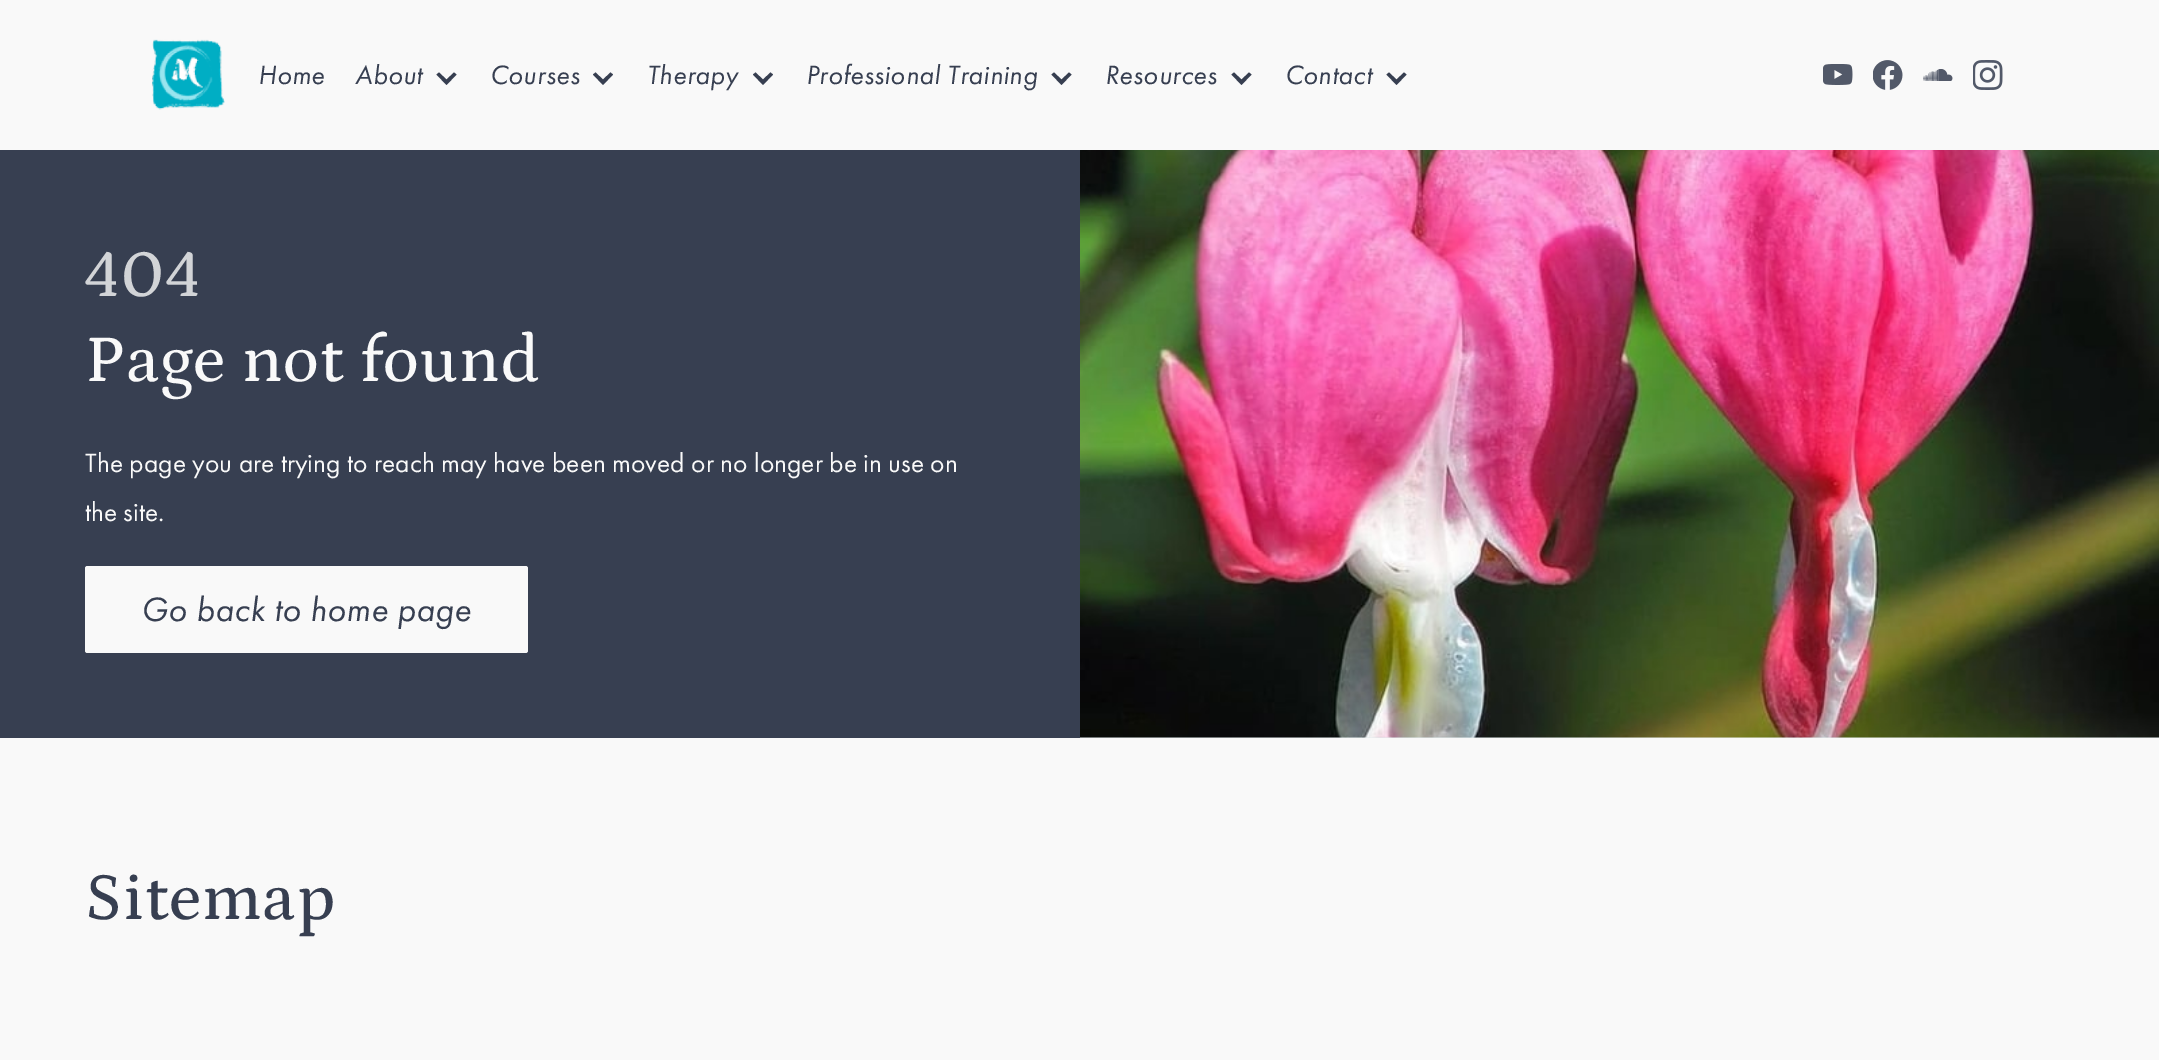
%!PS
<< /PageSize [2159 1060] >> setpagedevice
/rgb { dup -16 bitshift 255 div exch dup -8 bitshift 255 and 255 div exch 255 and 255 div setrgbcolor } def
/font { [ exch dup neg 0 0 3 -1 roll 0 0 ] selectfont } def
/text { moveto show } def
/roundrect { 5 dict begin { /r /h /w /y /x } { exch def } forall
  x r add y moveto x w add y 2 copy h add r arct x w add y h add x 1 index r arct
  x y h add x y r arct x y 2 copy exch w add exch r arct closepath end } def
/picture { 5 dict begin { /h /w /y /x /name } { exch def } forall
  gsave x y translate w h scale
  w h 8 [w 0 0 h 0 0] name (r) file false 3 colorimage grestore end } def
0 1060 translate 1 -1 scale
4 setmiterlimit
/s1 { /FuturaPT-Regular 27.5 font 16#F9F9F9 rgb } def
16#E4EDEF rgb
0 0 2159 1060 rectfill
16#F9F9F9 rgb
0 0 2159 150 rectfill
(pic1.raw) 152 39 73 71 picture
/FuturaPT-Italic 27.5 font
16#373F51 rgb
258 84 moveto 0.55 0 (Home) ashow
355 84 moveto 0.55 0 (About) ashow
454 72.5 moveto 446.5 79.5 lineto 439 72.5 lineto 436.5 74.5 lineto 446.5 85 lineto 456.5 74.5 lineto closepath fill
490 84 moveto 0.55 0 (Courses) ashow
610.5 72.5 moveto 603 79.5 lineto 595.5 72.5 lineto 593 74.5 lineto 603 85 lineto 613 74.5 lineto closepath fill
647 84 moveto 0.55 0 (Therapy) ashow
770.5 72.5 moveto 763 79.5 lineto 755.5 72.5 lineto 753 74.5 lineto 763 85 lineto 773 74.5 lineto closepath fill
806 84 moveto 0.55 0 (Professional Training) ashow
1069 72.5 moveto 1061.5 79.5 lineto 1054 72.5 lineto 1051.5 74.5 lineto 1061.5 85 lineto 1071.5 74.5 lineto closepath fill
1105 84 moveto 0.55 0 (Resources) ashow
1249 72.5 moveto 1241.5 79.5 lineto 1234 72.5 lineto 1231.5 74.5 lineto 1241.5 85 lineto 1251.5 74.5 lineto closepath fill
1285 84 moveto 0.55 0 (Contact) ashow
1404 72.5 moveto 1396.5 79.5 lineto 1389 72.5 lineto 1386.5 74.5 lineto 1396.5 85 lineto 1406.5 74.5 lineto closepath fill
(pic2.raw) 1823 64 30 21 picture
(pic3.raw) 1873 60 30 30 picture
(pic4.raw) 1923 69 30 12 picture
(pic5.raw) 1973 60 30 30 picture
0 150 1080 588 rectfill
/Petrona-Medium 67.5 font
16#D2D4D7 rgb
85 296 moveto 0.6 0 (404) ashow
16#F9F9F9 rgb
85 381 moveto 0.6 0 (Page not found) ashow
s1
(The page you are trying to reach may have been moved or no longer be in use on) 85 472 text
(the site.) 85 521 text
85 566 443 87 2.5 roundrect fill
/FuturaPT-Italic 35 font
16#373F51 rgb
141 621 moveto 0.6 0 (Go back to home page) ashow
(pic6.raw) 1080 150 1079 588 picture
16#F9F9F9 rgb
0 738 2159 322 rectfill
/Petrona-Medium 67.5 font
16#373F51 rgb
85 919 moveto 0.75 0 (Sitemap) ashow
showpage
